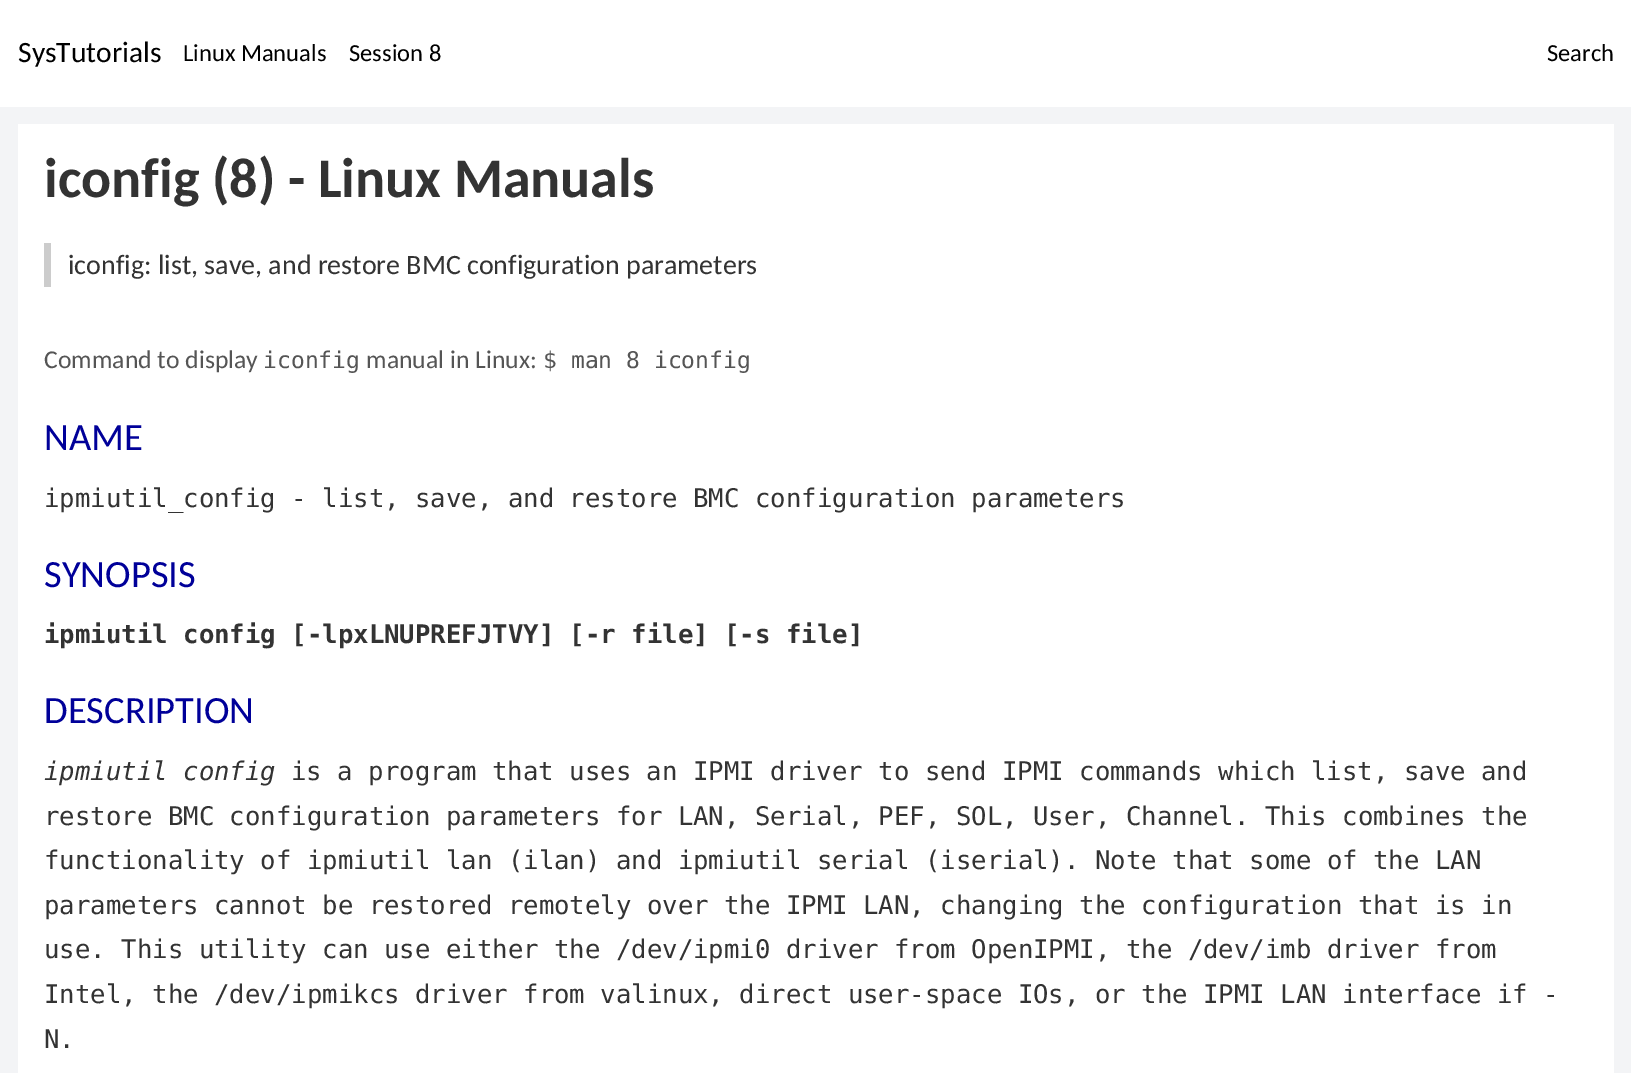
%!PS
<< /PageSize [1631 1073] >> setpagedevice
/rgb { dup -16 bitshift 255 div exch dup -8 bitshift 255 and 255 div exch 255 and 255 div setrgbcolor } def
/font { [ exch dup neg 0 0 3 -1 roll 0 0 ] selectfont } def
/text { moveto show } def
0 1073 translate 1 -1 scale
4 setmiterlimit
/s1 { /Carlito-Regular 29.5 font 16#000000 rgb } def
/s2 { /Carlito-Regular 24.5 font 16#000000 rgb } def
/s3 { /Carlito-Bold 56 font 16#333333 rgb } def
/s4 { /Carlito-Regular 28 font 16#333333 rgb } def
/s5 { /Carlito-Regular 25.67 font 16#555555 rgb } def
/s6 { /DejaVuSansMono-Regular 23 font 16#555555 rgb } def
/s7 { /Carlito-Regular 38.5 font 16#000099 rgb } def
/s8 { /DejaVuSansMono-Regular 25.67 font 16#333333 rgb } def
/s9 { /DejaVuSansMono-Bold 25.67 font 16#333333 rgb } def
/s10 { /DejaVuSansMono-Italic 25.67 font 16#333333 rgb } def
16#F3F4F6 rgb
0 0 1631 1073 rectfill
16#FFFFFF rgb
0 0 1631 107 rectfill
s1
(SysTutorials) 18 62 text
s2
(Linux Manuals) 183 61 text
(Session 8) 349 61 text
(Search) 1547 61 text
16#FFFFFF rgb
18 124 1596 949 rectfill
s3
(iconfig \(8\) - Linux Manuals) 44 197 text
16#CCCCCC rgb
44 243 7 44 rectfill
s4
(iconfig: list, save, and restore BMC configuration parameters) 68 274 text
s5
(Command to display) 44 368 text
s6
(iconfig) 263 368 text
s5
(manual in Linux:) 366 368 text
s6
($ man 8 iconfig) 543 368 text
s7
(NAME) 44 450 text
s8
(ipmiutil_config - list, save, and restore BMC configuration parameters) 44 507 text
s7
(SYNOPSIS) 44 587 text
s9
(ipmiutil config [-lpxLNUPREFJTVY] [-r file] [-s file]) 44 643 text
s7
(DESCRIPTION) 44 723 text
s10
(ipmiutil config) 44 780 text
s8
(is a program that uses an IPMI driver to send IPMI commands which list, save and) 291 780 text
(restore BMC configuration parameters for LAN, Serial, PEF, SOL, User, Channel. This combines the) 44 825 text
(functionality of ipmiutil lan \(ilan\) and ipmiutil serial \(iserial\). Note that some of the LAN) 44 869 text
(parameters cannot be restored remotely over the IPMI LAN, changing the configuration that is in) 44 914 text
(use. This utility can use either the /dev/ipmi0 driver from OpenIPMI, the /dev/imb driver from) 44 958 text
(Intel, the /dev/ipmikcs driver from valinux, direct user-space IOs, or the IPMI LAN interface if -) 44 1003 text
(N.) 44 1048 text
showpage
